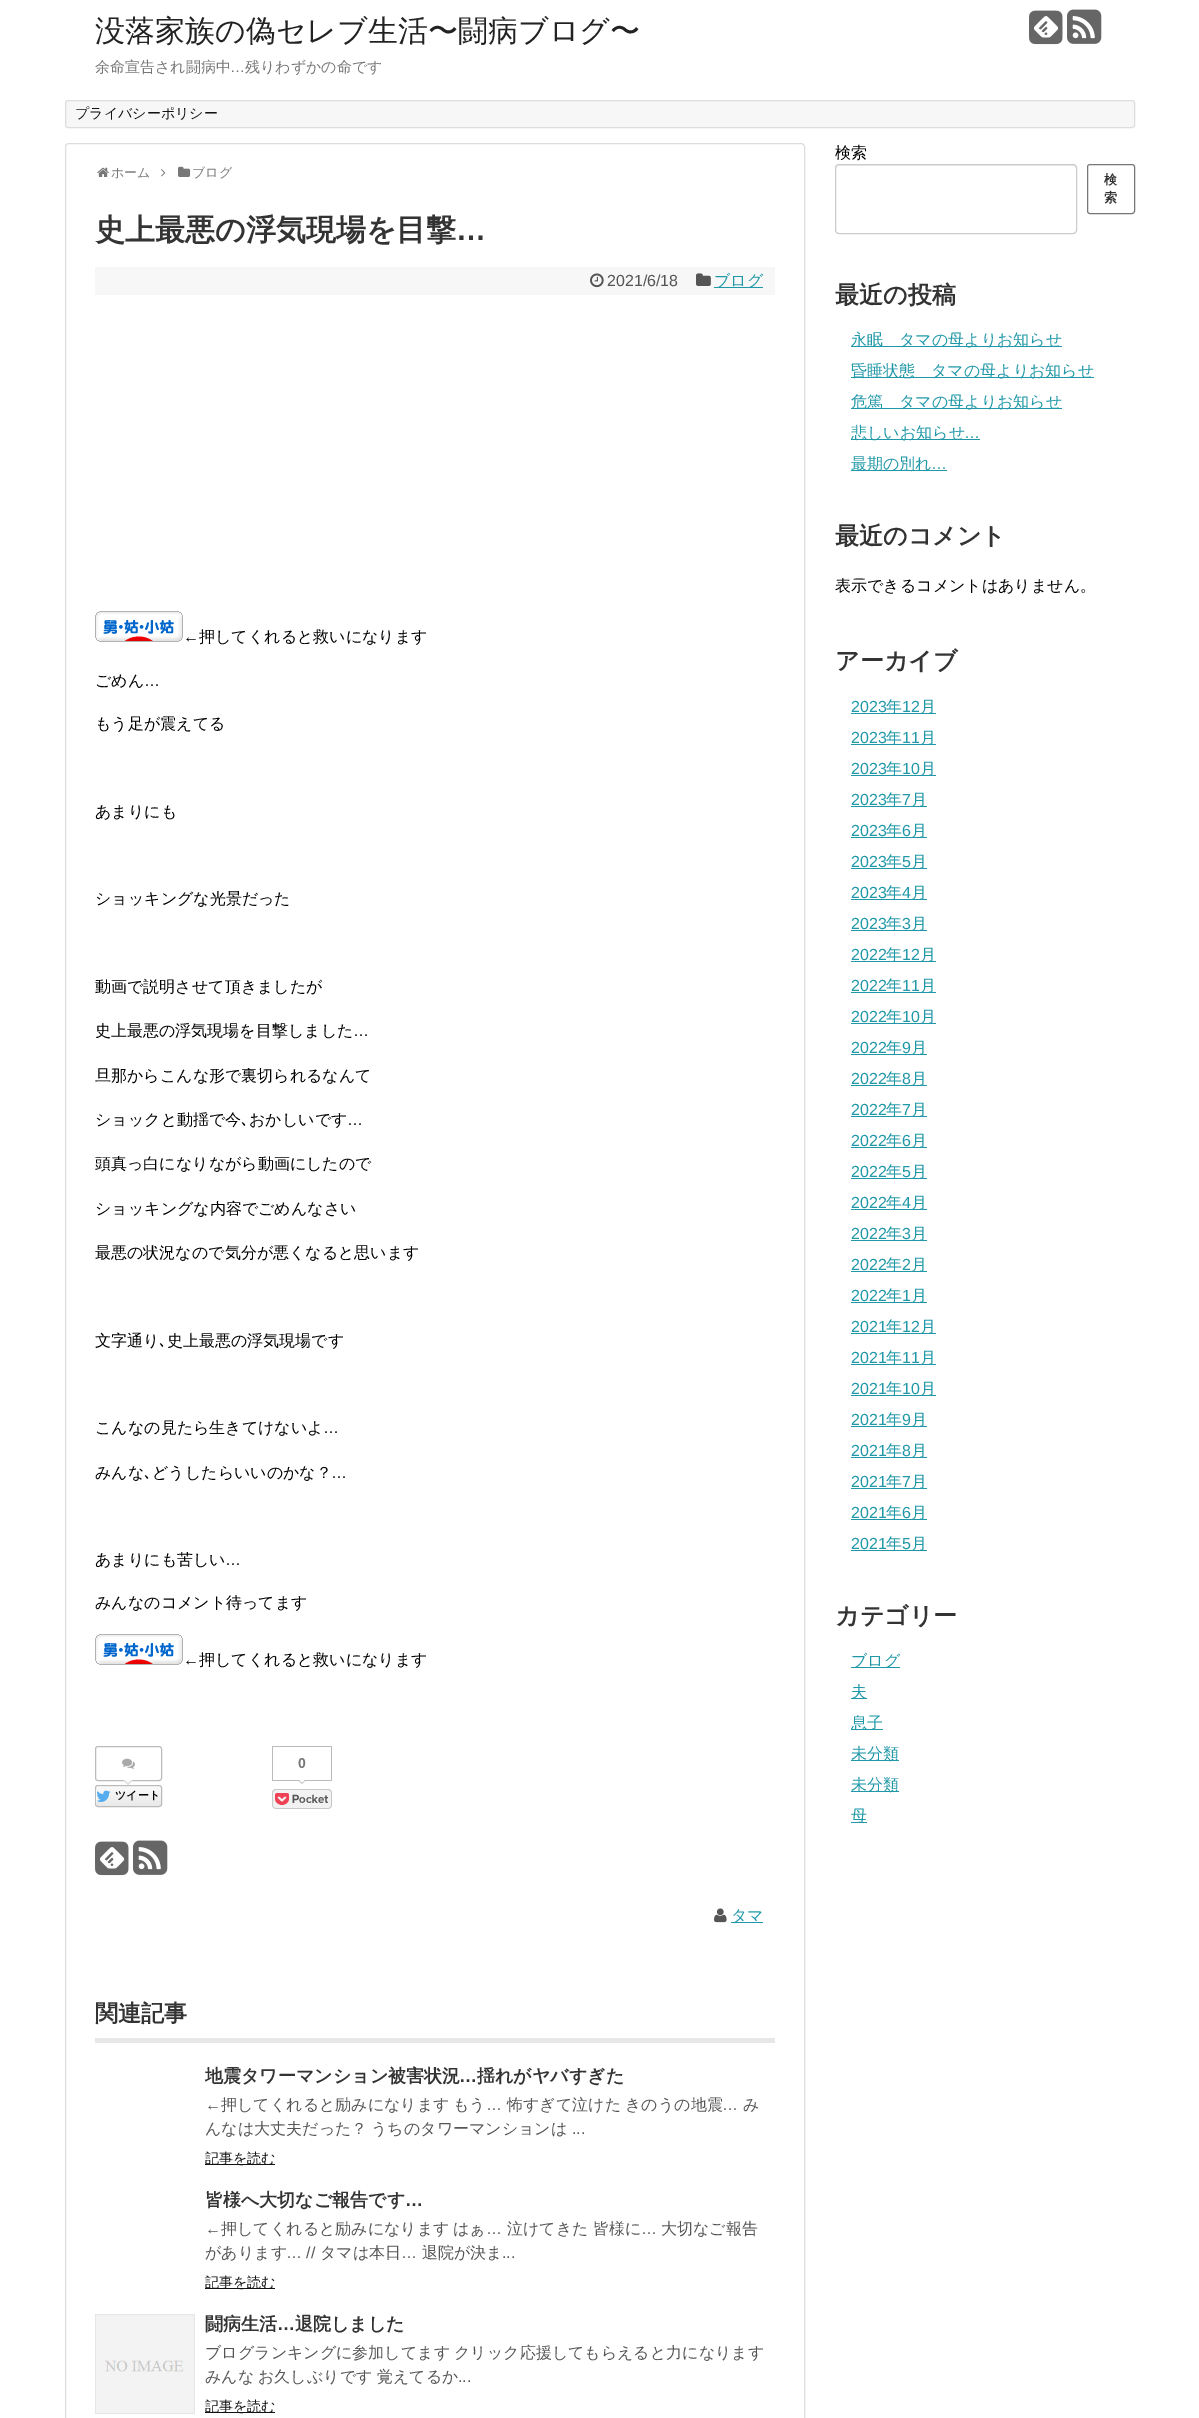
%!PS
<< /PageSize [1199 2418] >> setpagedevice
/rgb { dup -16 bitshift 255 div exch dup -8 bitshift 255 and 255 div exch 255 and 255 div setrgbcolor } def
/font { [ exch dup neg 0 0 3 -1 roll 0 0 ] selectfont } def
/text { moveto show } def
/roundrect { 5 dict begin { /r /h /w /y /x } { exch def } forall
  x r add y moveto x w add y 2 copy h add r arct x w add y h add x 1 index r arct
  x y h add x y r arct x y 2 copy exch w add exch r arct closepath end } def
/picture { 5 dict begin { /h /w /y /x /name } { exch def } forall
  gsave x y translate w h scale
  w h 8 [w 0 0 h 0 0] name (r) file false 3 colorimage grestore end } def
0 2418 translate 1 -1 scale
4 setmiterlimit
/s1 { /WenQuanYiZenHei-Medium 30 font 16#222222 rgb } def
/s2 { /WenQuanYiZenHei-Medium 15 font 16#777777 rgb } def
/s3 { /LiberationSans-Regular 15 font 16#777777 rgb } def
/s4 { /WenQuanYiZenHei-Medium 14 font 16#111111 rgb } def
/s5 { /WenQuanYiZenHei-Medium 13 font 16#777777 rgb } def
/s6 { /WenQuanYiZenHei-Bold 30 font 16#333333 rgb } def
/s7 { /LiberationSans-Bold 30 font 16#333333 rgb } def
/s8 { /LiberationSans-Regular 16 font 16#555555 rgb } def
/s9 { /WenQuanYiZenHei-Medium 16 font 16#2098A8 rgb } def
/s10 { /LiberationSans-Regular 16 font 16#000000 rgb } def
/s11 { /WenQuanYiZenHei-Medium 16 font 16#000000 rgb } def
/s12 { /IPAPGothic-Regular 16 font 16#000000 rgb } def
/s13 { /WenQuanYiZenHei-Bold 11 font 16#000000 rgb } def
/s14 { /WenQuanYiZenHei-Bold 23 font 16#333333 rgb } def
/s15 { /WenQuanYiZenHei-Bold 18 font 16#333333 rgb } def
/s16 { /LiberationSans-Bold 18 font 16#333333 rgb } def
/s17 { /WenQuanYiZenHei-Medium 16 font 16#555555 rgb } def
/s18 { /WenQuanYiZenHei-Bold 13 font 16#333333 rgb } def
/s19 { /WenQuanYiZenHei-Bold 24 font 16#333333 rgb } def
/s20 { /LiberationSans-Regular 16 font 16#2098A8 rgb } def
16#FFFFFF rgb
0 0 1199 2418 rectfill
s1
(没落家族の偽セレブ生活〜闘病ブログ〜) 95 41 text
s2
(余命宣告され闘病中) 95 72 text
s3
(…) 230 72 text
s2
(残りわずかの命です) 245 72 text
(pic1.raw) 1029 10 34 35 picture
(pic2.raw) 1067 9 35 35 picture
16#F7F7F7 rgb
65.5 100.5 1069 27 2.5 roundrect gsave fill grestore
16#DDDDDD rgb
stroke
s4
(プライバシーポリシー) 75 118 text
16#DDDDDD rgb
65.5 143.5 739 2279 3.5 roundrect stroke
(pic3.raw) 97 167 12 10 picture
s5
(ホーム) 111 177 text
(pic4.raw) 161 169 5 8 picture
(pic5.raw) 178 166 13 11 picture
(ブログ) 192 177 text
s6
(史上最悪の浮気現場を目撃) 95 240 text
s7
(…) 456 240 text
16#F7F7F7 rgb
95 267 680 28 rectfill
(pic6.raw) 590 273 14 15 picture
s8
(2021/6/18) 607 286 text
(pic7.raw) 696 273 15 13 picture
16#2098A8 rgb
714 287 49 1 rectfill
s9
(ブログ) 714 286 text
(pic8.raw) 95 611 88 31 picture
s10
(←) 183 642 text
s11
(押してくれると救いになります) 199 642 text
(ごめん) 95 686 text
s10
(…) 144 686 text
s11
(もう足が震えてる) 95 729 text
(あまりにも) 95 817 text
(ショッキングな光景だった) 95 904 text
(動画で説明させて頂きましたが) 95 992 text
(史上最悪の浮気現場を目撃しました) 95 1036 text
s10
(…) 353 1036 text
s11
(旦那からこんな形で裏切られるなんて) 95 1081 text
(ショックと動揺で今) 95 1125 text
s12
(､) 241 1125 text
s11
(おかしいです) 249 1125 text
s10
(…) 347 1125 text
s11
(頭真っ白になりながら動画にしたので) 95 1169 text
(ショッキングな内容でごめんなさい) 95 1214 text
(最悪の状況なので気分が悪くなると思います) 95 1258 text
(文字通り) 95 1346 text
s12
(､) 159 1346 text
s11
(史上最悪の浮気現場です) 167 1346 text
(こんなの見たら生きてけないよ) 95 1433 text
s10
(…) 323 1433 text
s11
(みんな) 95 1478 text
s12
(､) 144 1478 text
s11
(どうしたらいいのかな？) 152 1478 text
s10
(…) 331 1478 text
s11
(あまりにも苦しい) 95 1565 text
s10
(…) 225 1565 text
s11
(みんなのコメント待ってます) 95 1608 text
(pic8.raw) 95 1634 88 31 picture
s10
(←) 183 1665 text
s11
(押してくれると救いになります) 199 1665 text
16#BBBBBB rgb
95.5 1746.5 66 34 2.5 roundrect stroke
(pic9.raw) 122 1758 13 11 picture
16#DDDDDD rgb
123 1780 moveto 133 1780 lineto 128 1785 lineto closepath fill
16#FFFFFF rgb
125 1780 moveto 131 1780 lineto 128 1783 lineto closepath fill
gsave
95 1785 67 22 3 roundrect clip newpath
gsave 95 1786 moveto 162 1786 lineto 162 1806 lineto 95 1806 lineto closepath clip newpath
<< /ShadingType 2 /ColorSpace /DeviceRGB /Coords [96 1786 96 1806] /Extend [true true] /Function << /FunctionType 3 /Domain [0 1] /Functions [<< /FunctionType 2 /Domain [0 1] /C0 [0.976 0.976 0.976] /C1 [0.976 0.976 0.976] /N 1 >> << /FunctionType 2 /Domain [0 1] /C0 [0.976 0.976 0.976] /C1 [0.914 0.914 0.914] /N 1 >>] /Bounds [0.05] /Encode [0 1 0 1] >> >> shfill grestore
grestore
99 1787 moveto 161 1787 lineto 159 1786 lineto 98 1786 lineto 97 1786 96 1787 96 1788 curveto 96 1791 95 1805 97 1806 curveto 97 1797 lineto 97 1795 96 1787 99 1787 curveto closepath fill
16#BBBBBB rgb
95.5 1785.5 66 21 2.5 roundrect stroke
(pic10.raw) 96 1790 15 12 picture
s13
(ツイート) 115 1799 text
(pic11.raw) 272 1746 60 63 picture
(pic1.raw) 95 1841 34 35 picture
(pic2.raw) 133 1840 35 35 picture
(pic12.raw) 714 1908 13 15 picture
16#2098A8 rgb
731 1922 32 1 rectfill
s9
(タマ) 731 1921 text
16#E7E7E7 rgb
95 2038 680 5 rectfill
s14
(関連記事) 95 2021 text
s15
(地震タワーマンション被害状況) 205 2082 text
s16
(…) 459 2082 text
s15
(揺れがヤバすぎた) 477 2082 text
s8
(←) 205 2110 text
s17
(押してくれると励みになります) 221 2110 text
(もう) 453 2110 text
s8
(…) 486 2110 text
s17
(怖すぎて泣けた) 507 2110 text
(きのうの地震) 625 2110 text
s8
(…) 722 2110 text
s17
(み) 743 2110 text
(んなは大丈夫だった？) 205 2134 text
(うちのタワーマンションは) 371 2134 text
s8
(...) 572 2134 text
16#111111 rgb
205 2164 70 1 rectfill
s4
(記事を読む) 205 2163 text
s15
(皆様へ大切なご報告です) 205 2206 text
s16
(…) 405 2206 text
s8
(←) 205 2234 text
s17
(押してくれると励みになります) 221 2234 text
(はぁ) 453 2234 text
s8
(…) 486 2234 text
s17
(泣けてきた) 507 2234 text
(皆様に) 593 2234 text
s8
(…) 641 2234 text
s17
(大切なご報告) 661 2234 text
(があります) 205 2258 text
s8
(… //) 286 2258 text
s17
(タマは本日) 320 2258 text
s8
(…) 401 2258 text
s17
(退院が決ま) 422 2258 text
s8
(...) 502 2258 text
16#111111 rgb
205 2288 70 1 rectfill
s4
(記事を読む) 205 2287 text
(pic13.raw) 95 2314 100 100 picture
s15
(闘病生活) 205 2330 text
s16
(…) 277 2330 text
s15
(退院しました) 295 2330 text
s17
(ブログランキングに参加してます) 205 2358 text
(クリック応援してもらえると力になります) 454 2358 text
(みんな) 205 2382 text
(お久しぶりです) 258 2382 text
(覚えてるか) 377 2382 text
s8
(...) 458 2382 text
16#111111 rgb
205 2412 70 1 rectfill
s4
(記事を読む) 205 2411 text
s11
(検索) 835 158 text
16#ECECEC rgb
839 166 moveto 1074 166 lineto 1076 167 lineto 1076 169 lineto 1076 167 1075 165 1073 165 curveto 839 165 lineto 837 165 836 167 836 169 curveto 836 167 837 166 839 166 curveto closepath fill
16#CCCCCC rgb
835.5 164.5 241 69 3.5 roundrect stroke
16#777777 rgb
1087.5 164.5 47 49 2.5 roundrect stroke
s18
(検) 1104 184 text
(索) 1104 202 text
s19
(最近の投稿) 835 303 text
16#2098A8 rgb
851 346 211 1 rectfill
s9
(永眠　タマの母よりお知らせ) 851 345 text
851 377 243 1 rectfill
(昏睡状態　タマの母よりお知らせ) 851 376 text
851 408 211 1 rectfill
(危篤　タマの母よりお知らせ) 851 407 text
851 439 129 1 rectfill
(悲しいお知らせ) 851 438 text
s20
(…) 964 438 text
851 470 96 1 rectfill
s9
(最期の別れ) 851 469 text
s20
(…) 931 469 text
s19
(最近のコメント) 835 544 text
s11
(表示できるコメントはありません。) 835 591 text
s19
(アーカイブ) 835 669 text
s20
(2023) 851 712 text
851 713 85 1 rectfill
s9
(年) 886 712 text
s20
(12) 902 712 text
s9
(月) 920 712 text
s20
(2023) 851 743 text
851 744 85 1 rectfill
s9
(年) 886 743 text
s20
(11) 902 743 text
s9
(月) 920 743 text
s20
(2023) 851 774 text
851 775 85 1 rectfill
s9
(年) 886 774 text
s20
(10) 902 774 text
s9
(月) 920 774 text
s20
(2023) 851 805 text
851 806 76 1 rectfill
s9
(年) 886 805 text
s20
(7) 902 805 text
s9
(月) 911 805 text
s20
(2023) 851 836 text
851 837 76 1 rectfill
s9
(年) 886 836 text
s20
(6) 902 836 text
s9
(月) 911 836 text
s20
(2023) 851 867 text
851 868 76 1 rectfill
s9
(年) 886 867 text
s20
(5) 902 867 text
s9
(月) 911 867 text
s20
(2023) 851 898 text
851 899 76 1 rectfill
s9
(年) 886 898 text
s20
(4) 902 898 text
s9
(月) 911 898 text
s20
(2023) 851 929 text
851 930 76 1 rectfill
s9
(年) 886 929 text
s20
(3) 902 929 text
s9
(月) 911 929 text
s20
(2022) 851 960 text
851 961 85 1 rectfill
s9
(年) 886 960 text
s20
(12) 902 960 text
s9
(月) 920 960 text
s20
(2022) 851 991 text
851 992 85 1 rectfill
s9
(年) 886 991 text
s20
(11) 902 991 text
s9
(月) 920 991 text
s20
(2022) 851 1022 text
851 1023 85 1 rectfill
s9
(年) 886 1022 text
s20
(10) 902 1022 text
s9
(月) 920 1022 text
s20
(2022) 851 1053 text
851 1054 76 1 rectfill
s9
(年) 886 1053 text
s20
(9) 902 1053 text
s9
(月) 911 1053 text
s20
(2022) 851 1084 text
851 1085 76 1 rectfill
s9
(年) 886 1084 text
s20
(8) 902 1084 text
s9
(月) 911 1084 text
s20
(2022) 851 1115 text
851 1116 76 1 rectfill
s9
(年) 886 1115 text
s20
(7) 902 1115 text
s9
(月) 911 1115 text
s20
(2022) 851 1146 text
851 1147 76 1 rectfill
s9
(年) 886 1146 text
s20
(6) 902 1146 text
s9
(月) 911 1146 text
s20
(2022) 851 1177 text
851 1178 76 1 rectfill
s9
(年) 886 1177 text
s20
(5) 902 1177 text
s9
(月) 911 1177 text
s20
(2022) 851 1208 text
851 1209 76 1 rectfill
s9
(年) 886 1208 text
s20
(4) 902 1208 text
s9
(月) 911 1208 text
s20
(2022) 851 1239 text
851 1240 76 1 rectfill
s9
(年) 886 1239 text
s20
(3) 902 1239 text
s9
(月) 911 1239 text
s20
(2022) 851 1270 text
851 1271 76 1 rectfill
s9
(年) 886 1270 text
s20
(2) 902 1270 text
s9
(月) 911 1270 text
s20
(2022) 851 1301 text
851 1302 76 1 rectfill
s9
(年) 886 1301 text
s20
(1) 902 1301 text
s9
(月) 911 1301 text
s20
(2021) 851 1332 text
851 1333 85 1 rectfill
s9
(年) 886 1332 text
s20
(12) 902 1332 text
s9
(月) 920 1332 text
s20
(2021) 851 1363 text
851 1364 85 1 rectfill
s9
(年) 886 1363 text
s20
(11) 902 1363 text
s9
(月) 920 1363 text
s20
(2021) 851 1394 text
851 1395 85 1 rectfill
s9
(年) 886 1394 text
s20
(10) 902 1394 text
s9
(月) 920 1394 text
s20
(2021) 851 1425 text
851 1426 76 1 rectfill
s9
(年) 886 1425 text
s20
(9) 902 1425 text
s9
(月) 911 1425 text
s20
(2021) 851 1456 text
851 1457 76 1 rectfill
s9
(年) 886 1456 text
s20
(8) 902 1456 text
s9
(月) 911 1456 text
s20
(2021) 851 1487 text
851 1488 76 1 rectfill
s9
(年) 886 1487 text
s20
(7) 902 1487 text
s9
(月) 911 1487 text
s20
(2021) 851 1518 text
851 1519 76 1 rectfill
s9
(年) 886 1518 text
s20
(6) 902 1518 text
s9
(月) 911 1518 text
s20
(2021) 851 1549 text
851 1550 76 1 rectfill
s9
(年) 886 1549 text
s20
(5) 902 1549 text
s9
(月) 911 1549 text
s19
(カテゴリー) 835 1624 text
16#2098A8 rgb
851 1667 49 1 rectfill
s9
(ブログ) 851 1666 text
851 1698 16 1 rectfill
(夫) 851 1697 text
851 1729 32 1 rectfill
(息子) 851 1728 text
851 1760 48 1 rectfill
(未分類) 851 1759 text
851 1791 48 1 rectfill
(未分類) 851 1790 text
851 1822 16 1 rectfill
(母) 851 1821 text
showpage
